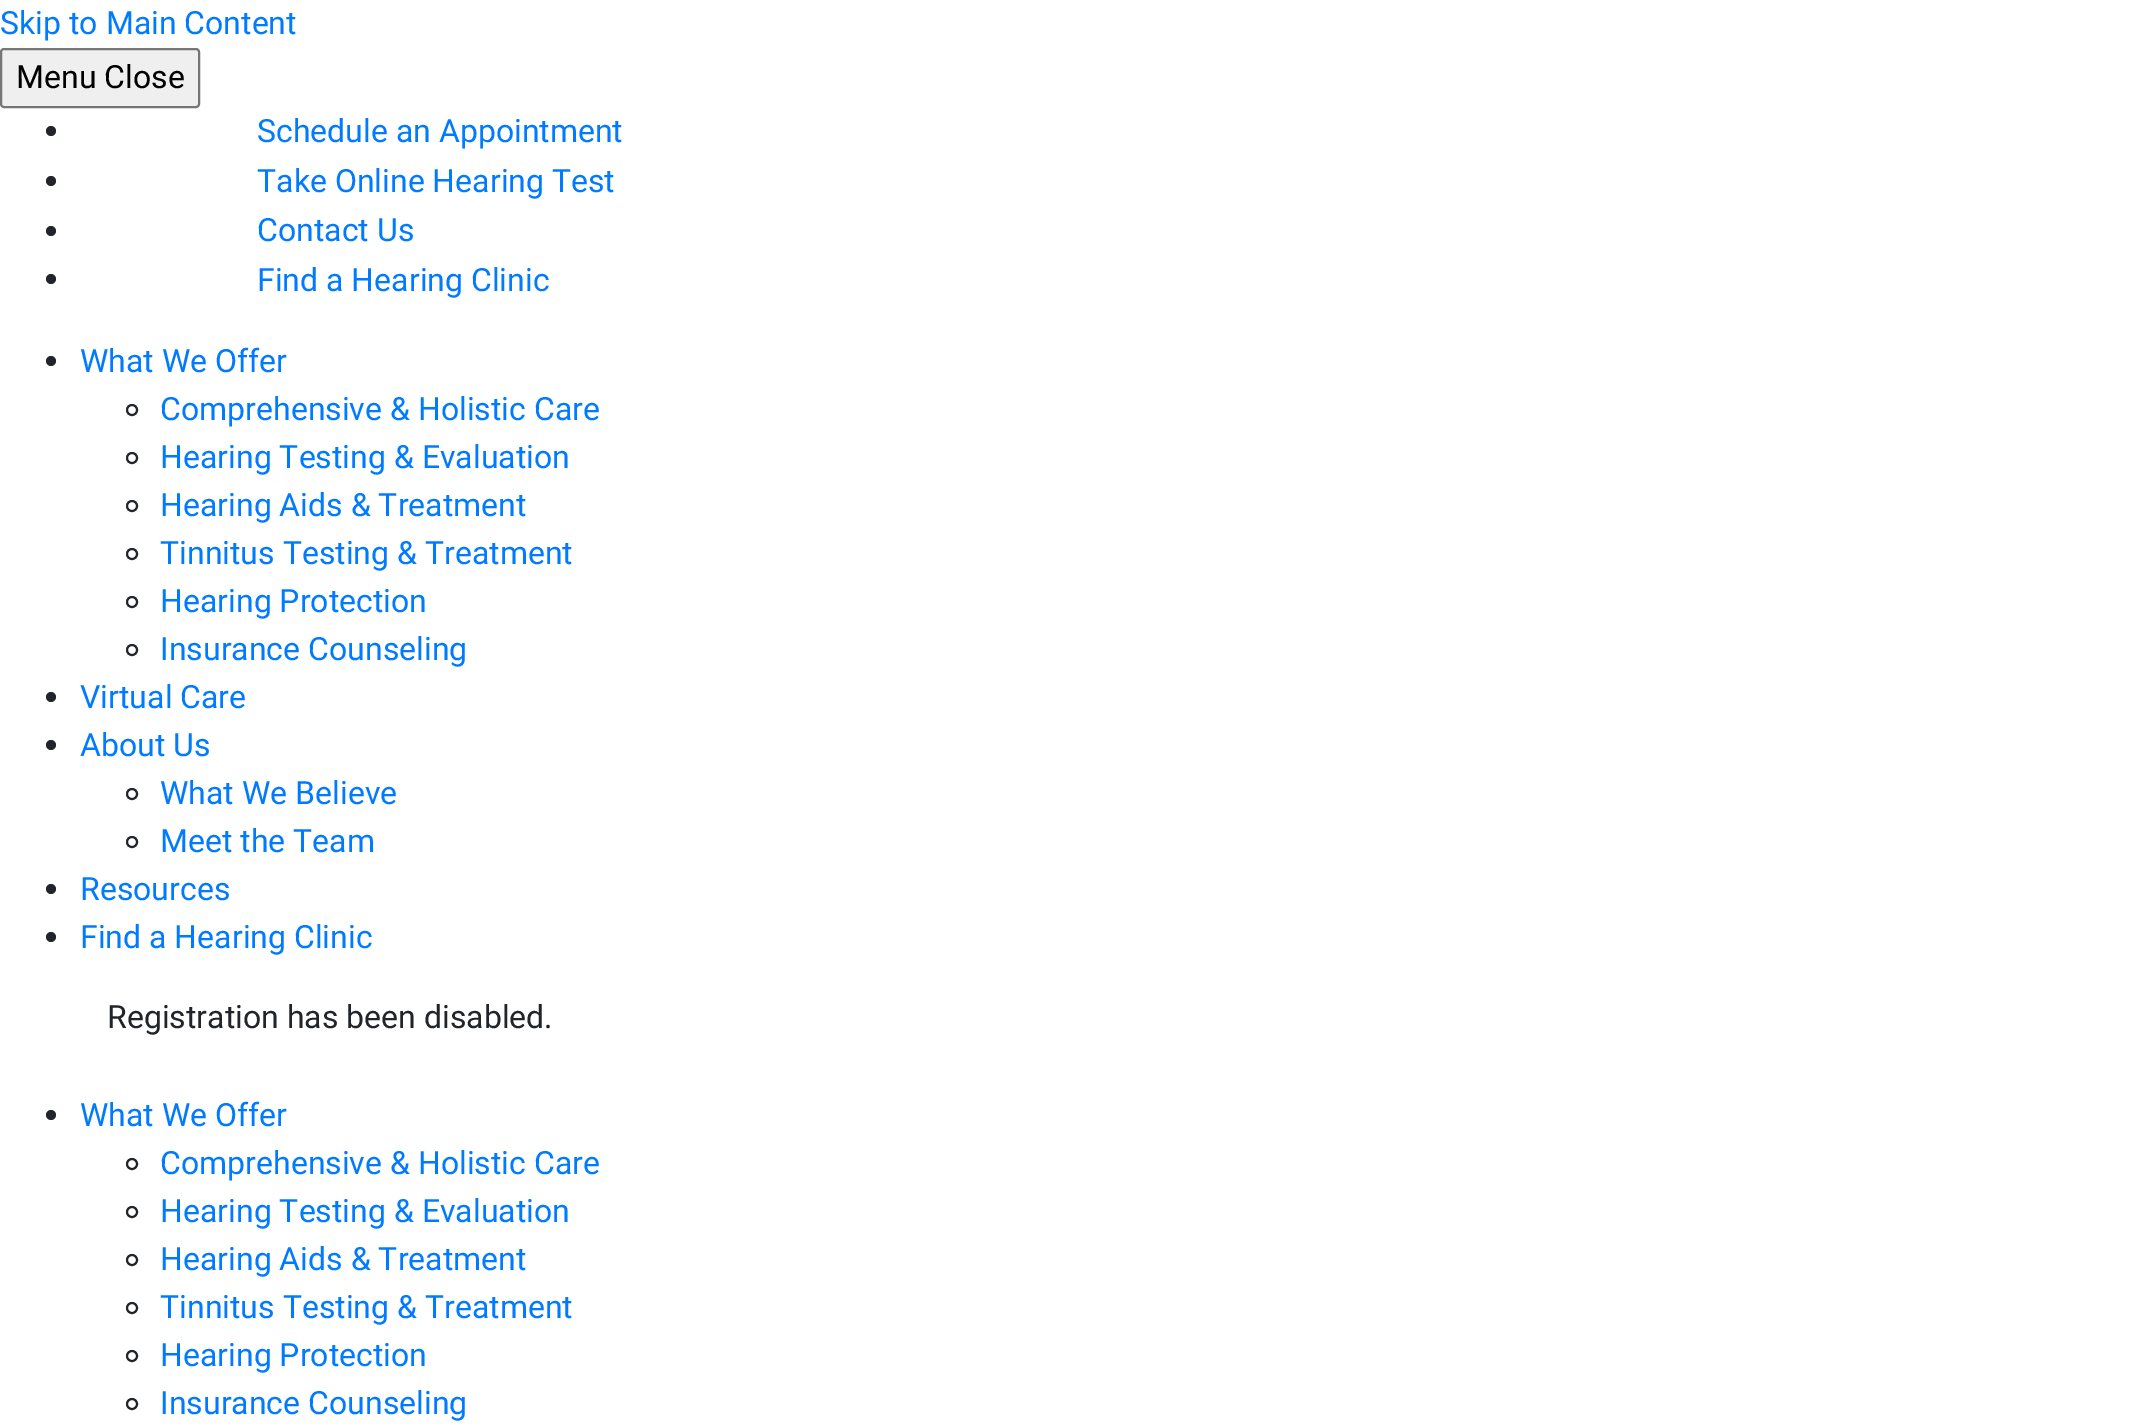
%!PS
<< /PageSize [2129 1426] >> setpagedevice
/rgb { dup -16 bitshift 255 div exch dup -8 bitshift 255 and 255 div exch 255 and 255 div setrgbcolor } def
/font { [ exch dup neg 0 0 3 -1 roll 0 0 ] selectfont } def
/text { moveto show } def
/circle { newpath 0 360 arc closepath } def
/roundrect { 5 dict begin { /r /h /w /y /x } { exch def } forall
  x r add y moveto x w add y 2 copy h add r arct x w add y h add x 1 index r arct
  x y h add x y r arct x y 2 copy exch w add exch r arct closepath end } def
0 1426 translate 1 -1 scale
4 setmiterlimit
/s1 { /Roboto-Regular 32 font 16#007BFF rgb } def
/s2 { /Roboto-Regular 32 font 16#000000 rgb } def
/s3 { /Roboto-Regular 32 font 16#212529 rgb } def
16#FFFFFF rgb
0 0 2129 1426 rectfill
s1
(Skip to Main Content) 0 34 text
16#EFEFEF rgb
1 49 198 58 3 roundrect gsave fill grestore
16#767676 rgb
2 setlinewidth
stroke
s2
(Menu Close) 16 88 text
16#212529 rgb
51 131 5 circle fill
s1
(Schedule an Appointment) 257 142 text
16#212529 rgb
51 181 5 circle fill
s1
(Take Online Hearing Test) 257 192 text
16#212529 rgb
51 231 5 circle fill
s1
(Contact Us) 257 241 text
16#212529 rgb
51 279 5 circle fill
s1
(Find a Hearing Clinic) 257 291 text
16#212529 rgb
51 361 5 circle fill
s1
(What We Offer) 80 372 text
16#212529 rgb
132 410 5 circle stroke
s1
(Comprehensive & Holistic Care) 160 420 text
16#212529 rgb
132 458 5 circle stroke
s1
(Hearing Testing & Evaluation) 160 468 text
16#212529 rgb
132 506 5 circle stroke
s1
(Hearing Aids & Treatment) 160 516 text
16#212529 rgb
132 554 5 circle stroke
s1
(Tinnitus Testing & Treatment) 160 564 text
16#212529 rgb
132 602 5 circle stroke
s1
(Hearing Protection) 160 612 text
16#212529 rgb
132 650 5 circle stroke
s1
(Insurance Counseling) 160 660 text
16#212529 rgb
51 697 5 circle fill
s1
(Virtual Care) 80 708 text
16#212529 rgb
51 745 5 circle fill
s1
(About Us) 80 756 text
16#212529 rgb
132 794 5 circle stroke
s1
(What We Believe) 160 804 text
16#212529 rgb
132 842 5 circle stroke
s1
(Meet the Team) 160 852 text
16#212529 rgb
51 889 5 circle fill
s1
(Resources) 80 900 text
16#212529 rgb
51 937 5 circle fill
s1
(Find a Hearing Clinic) 80 948 text
s3
(Registration has been disabled.) 107 1028 text
51 1115 5 circle fill
s1
(What We Offer) 80 1126 text
16#212529 rgb
132 1164 5 circle stroke
s1
(Comprehensive & Holistic Care) 160 1174 text
16#212529 rgb
132 1212 5 circle stroke
s1
(Hearing Testing & Evaluation) 160 1222 text
16#212529 rgb
132 1260 5 circle stroke
s1
(Hearing Aids & Treatment) 160 1270 text
16#212529 rgb
132 1308 5 circle stroke
s1
(Tinnitus Testing & Treatment) 160 1318 text
16#212529 rgb
132 1356 5 circle stroke
s1
(Hearing Protection) 160 1366 text
16#212529 rgb
132 1404 5 circle stroke
s1
(Insurance Counseling) 160 1414 text
showpage
